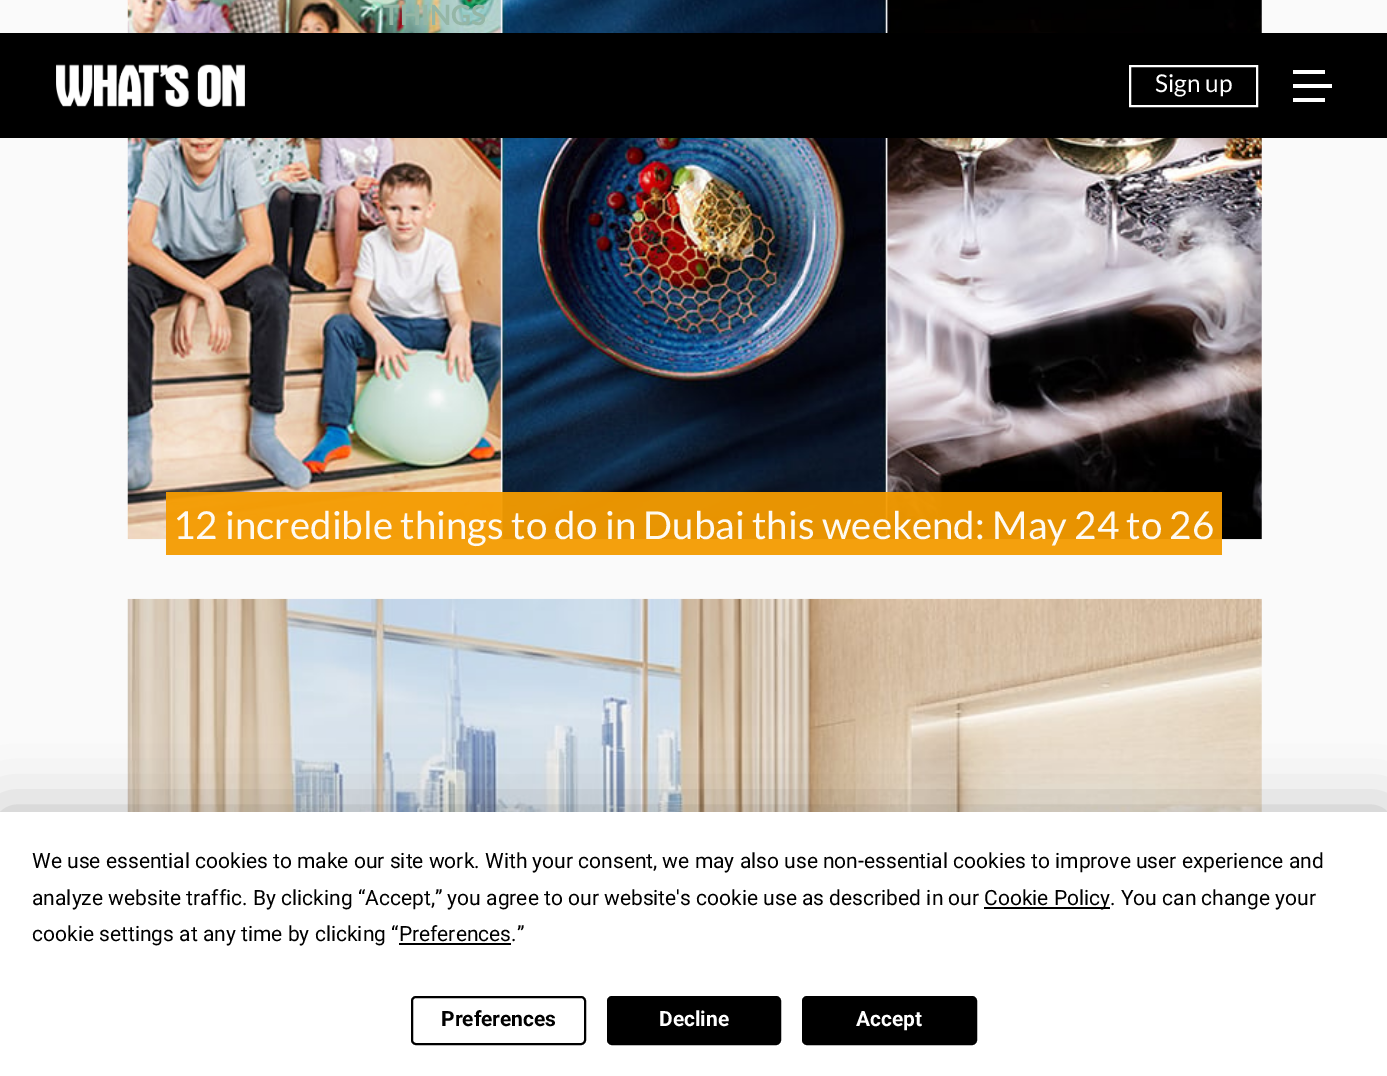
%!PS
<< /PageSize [1387 1076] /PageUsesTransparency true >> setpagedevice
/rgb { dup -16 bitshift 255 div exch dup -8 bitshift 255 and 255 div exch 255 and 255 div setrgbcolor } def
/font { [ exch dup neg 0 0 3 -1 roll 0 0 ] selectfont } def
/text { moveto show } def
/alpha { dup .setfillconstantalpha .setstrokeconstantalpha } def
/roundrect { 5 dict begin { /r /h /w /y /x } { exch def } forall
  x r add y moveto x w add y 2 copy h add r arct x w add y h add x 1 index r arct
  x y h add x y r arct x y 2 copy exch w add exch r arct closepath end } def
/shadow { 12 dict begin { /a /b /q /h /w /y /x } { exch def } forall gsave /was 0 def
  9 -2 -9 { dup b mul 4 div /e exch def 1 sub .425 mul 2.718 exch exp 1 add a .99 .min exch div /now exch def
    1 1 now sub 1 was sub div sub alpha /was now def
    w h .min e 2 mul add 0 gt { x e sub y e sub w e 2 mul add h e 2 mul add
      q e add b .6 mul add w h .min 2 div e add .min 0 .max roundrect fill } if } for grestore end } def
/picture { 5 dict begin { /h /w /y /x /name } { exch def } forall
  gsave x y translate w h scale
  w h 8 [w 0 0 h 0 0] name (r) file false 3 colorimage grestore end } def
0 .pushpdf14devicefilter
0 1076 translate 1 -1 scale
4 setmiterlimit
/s1 { /Lato-Bold 28 font 16#95B6A6 rgb } def
/s2 { /Lato-Regular 24.5 font 16#FFFFFF rgb } def
/s3 { /Lato-Regular 38.5 font 16#FEFAF2 rgb } def
/s4 { /Roboto-Regular 21 font 16#000000 rgb } def
/s5 { /Roboto-Bold 21 font 16#000000 rgb } def
/s6 { /Roboto-Bold 21 font 16#FFFFFF rgb } def
16#FAFAFA rgb
0 0 1387 1076 rectfill
(pic2.raw) 127 0 1135 540 picture
s1
(THINGS) 383 25 text
16#000000 rgb
0 33 1387 105 rectfill
(pic1.raw) 56 64 189 43 picture
16#FFFFFF rgb
2 setlinewidth
1130 66 127 40 rectstroke
s2
(Sign up) 1155 92 text
1293 70 32 4 rectfill
1293 84 39 4 rectfill
1293 98 32 4 rectfill
0.95 alpha
16#F49B00 rgb
166 492 1056 63 rectfill
1 alpha
s3
(12 incredible things to do in Dubai this weekend: May 24 to 26) 173 539 text
(pic3.raw) 127 598 1135 214 picture
16#000000 rgb
0 812 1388 264 0 30.5 0.25 shadow
16#FFFFFF rgb
0 812 1387 264 rectfill
s4
(We use essential cookies to make our site work. With your consent, we may also use non-essential cookies to improve user experience and) 32 868 text
(analyze website traffic. By clicking “Accept,” you agree to our website's cookie use as described in our) 32 905 text
984 907 126 2 rectfill
(Cookie Policy. You can change your) 984 905 text
(cookie settings at any time by clicking “Preferences.”) 32 941 text
399 943 112 2 rectfill
412 997 173 47 4 roundrect stroke
s5
(Preferences) 441 1026 text
608 997 172 47 4 roundrect gsave fill grestore
stroke
s6
(Decline) 659 1026 text
16#000000 rgb
803 997 173 47 4 roundrect gsave fill grestore
stroke
s6
(Accept) 856 1026 text
.poppdf14devicefilter showpage
